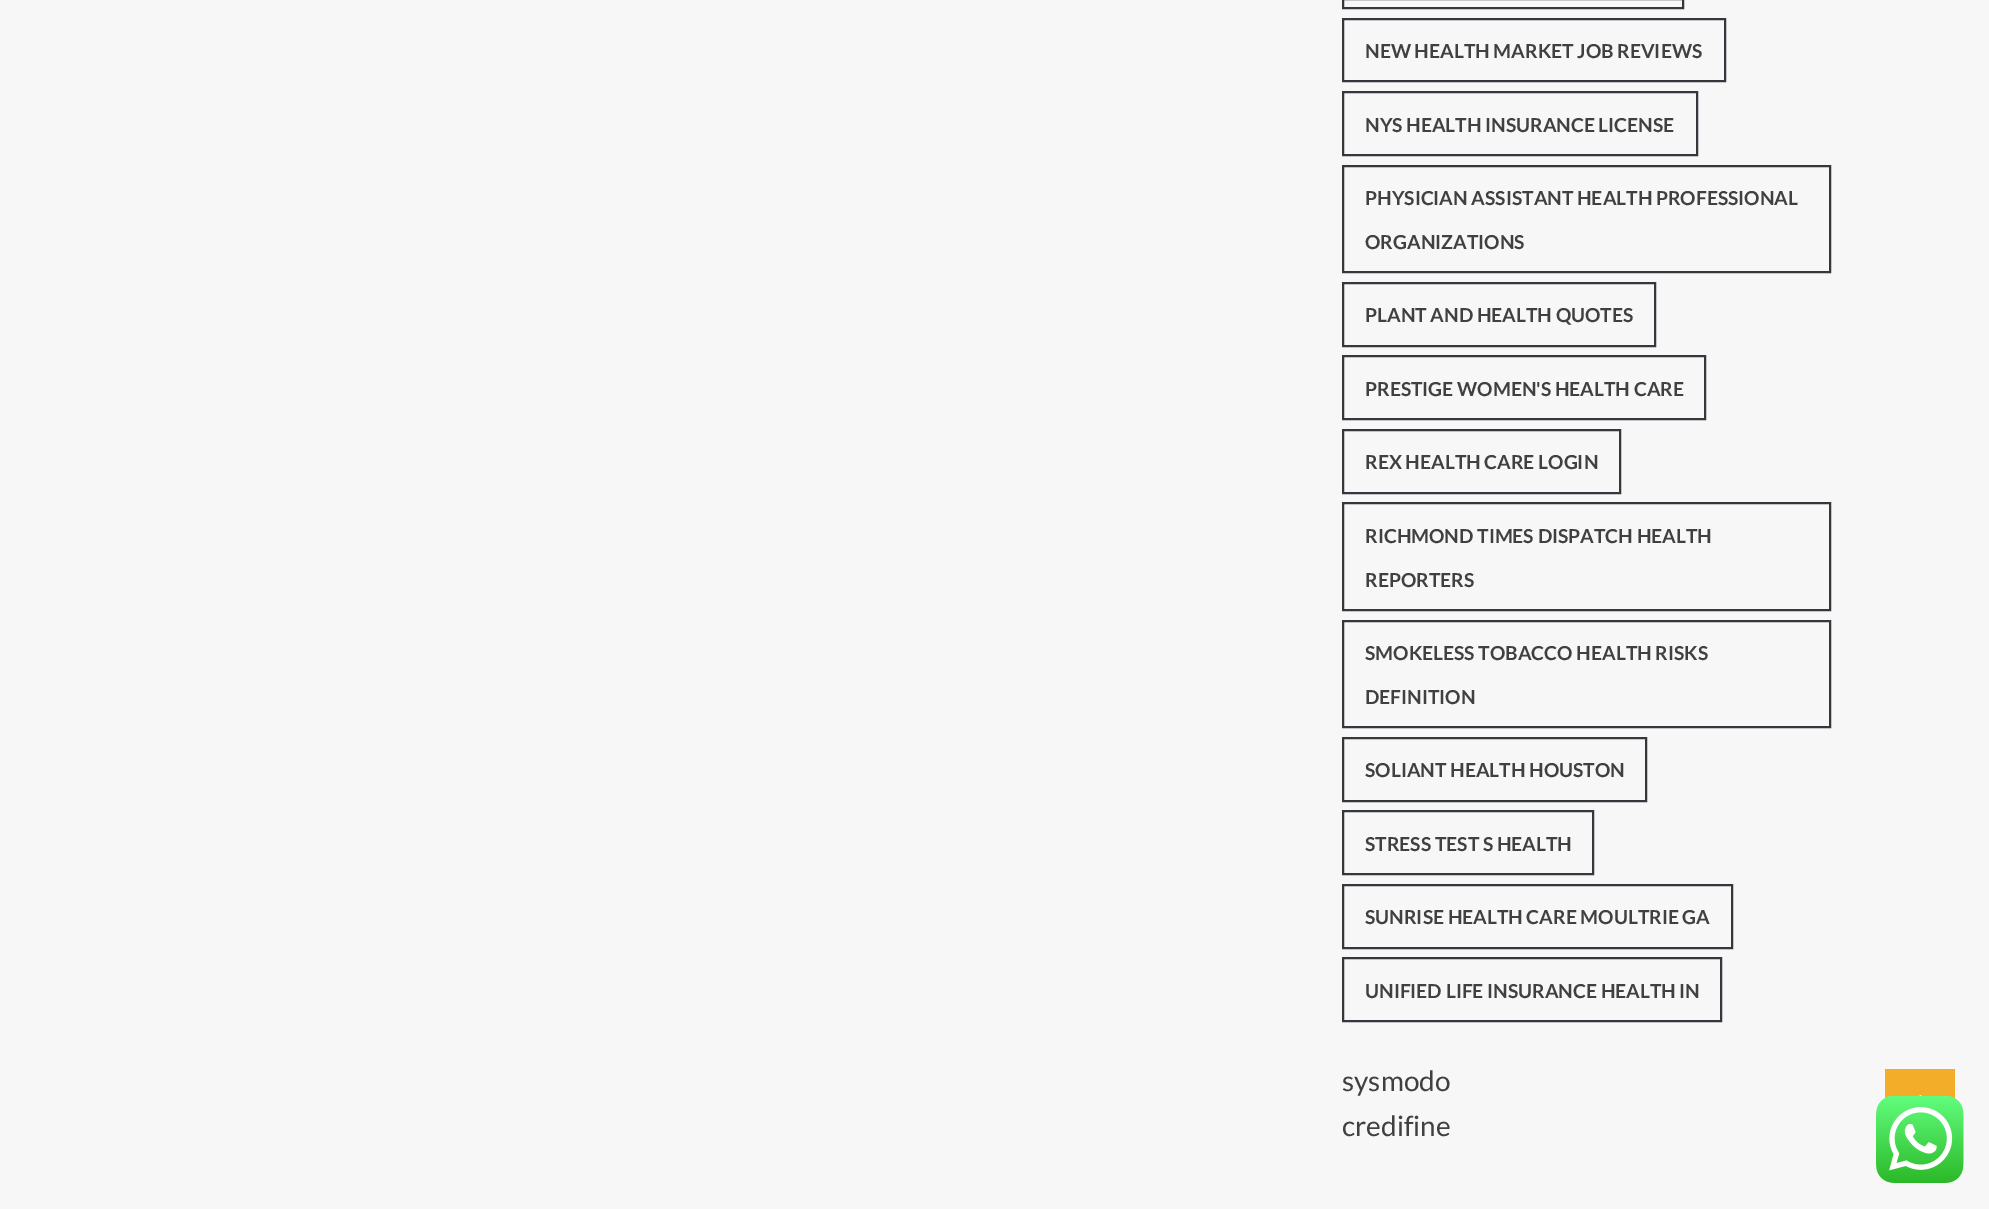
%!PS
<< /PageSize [1989 1209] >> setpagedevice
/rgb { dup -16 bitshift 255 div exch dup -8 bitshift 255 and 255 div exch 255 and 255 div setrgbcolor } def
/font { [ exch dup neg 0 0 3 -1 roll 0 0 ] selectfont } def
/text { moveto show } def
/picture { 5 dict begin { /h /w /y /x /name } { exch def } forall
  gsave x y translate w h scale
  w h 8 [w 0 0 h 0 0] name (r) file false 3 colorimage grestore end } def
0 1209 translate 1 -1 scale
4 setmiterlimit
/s1 { /Lato-Bold 19.25 font 16#404040 rgb } def
/s2 { /Lato-Regular 28 font 16#404040 rgb } def
16#F7F7F7 rgb
0 0 1989 1209 rectfill
16#35373C rgb
2 setlinewidth
1343 -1 340 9 rectstroke
1343 19 382 62 rectstroke
s1
(NEW HEALTH MARKET JOB REVIEWS) 1365 58 text
16#35373C rgb
1343 92 354 63 rectstroke
s1
(NYS HEALTH INSURANCE LICENSE) 1365 132 text
16#35373C rgb
1343 166 487 106 rectstroke
s1
(PHYSICIAN ASSISTANT HEALTH PROFESSIONAL) 1365 205 text
(ORGANIZATIONS) 1365 249 text
16#35373C rgb
1343 283 312 63 rectstroke
s1
(PLANT AND HEALTH QUOTES) 1365 322 text
16#35373C rgb
1343 356 362 63 rectstroke
s1
(PRESTIGE WOMEN'S HEALTH CARE) 1365 396 text
16#35373C rgb
1343 430 277 63 rectstroke
s1
(REX HEALTH CARE LOGIN) 1365 469 text
16#35373C rgb
1343 503 487 107 rectstroke
s1
(RICHMOND TIMES DISPATCH HEALTH) 1365 543 text
(REPORTERS) 1365 587 text
16#35373C rgb
1343 621 487 106 rectstroke
s1
(SMOKELESS TOBACCO HEALTH RISKS) 1365 660 text
(DEFINITION) 1365 704 text
16#35373C rgb
1343 738 303 63 rectstroke
s1
(SOLIANT HEALTH HOUSTON) 1365 777 text
16#35373C rgb
1343 811 250 63 rectstroke
s1
(STRESS TEST S HEALTH) 1365 851 text
16#35373C rgb
1343 885 389 63 rectstroke
s1
(SUNRISE HEALTH CARE MOULTRIE GA) 1365 924 text
16#35373C rgb
1343 958 378 63 rectstroke
s1
(UNIFIED LIFE INSURANCE HEALTH IN) 1365 998 text
s2
(sysmodo) 1342 1091 text
(credifine) 1342 1136 text
16#F3AD29 rgb
1885 1069 70 30 rectfill
(pic1.raw) 1919 1095 3 1 picture
(pic2.raw) 1876 1096 88 87 picture
showpage
